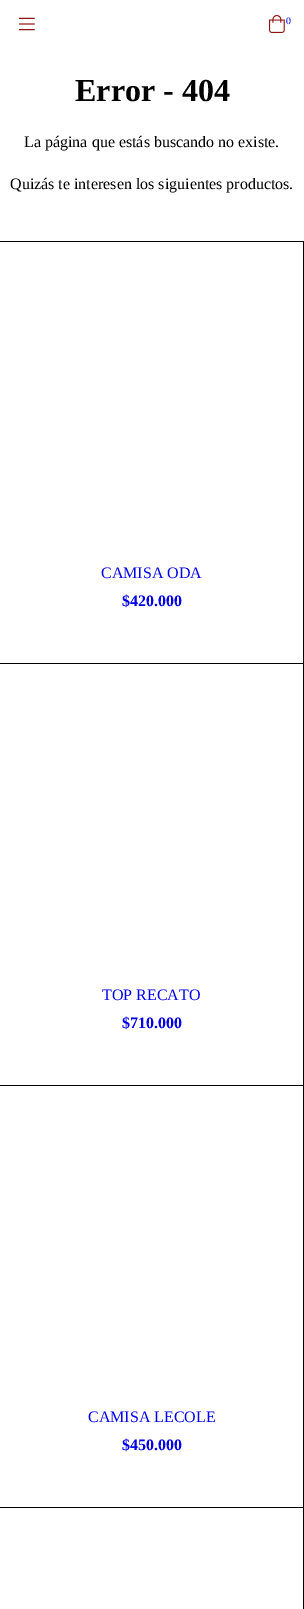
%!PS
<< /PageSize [304 1609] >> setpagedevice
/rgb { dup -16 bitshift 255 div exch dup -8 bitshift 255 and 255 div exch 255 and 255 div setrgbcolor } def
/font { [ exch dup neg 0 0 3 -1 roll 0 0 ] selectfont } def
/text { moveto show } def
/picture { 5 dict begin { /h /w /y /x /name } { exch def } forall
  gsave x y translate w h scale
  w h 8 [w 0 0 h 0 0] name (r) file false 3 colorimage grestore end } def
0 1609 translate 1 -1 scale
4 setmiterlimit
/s1 { /LiberationSerif-Regular 10 font 16#0000EE rgb } def
/s2 { /LiberationSerif-Bold 32 font 16#000000 rgb } def
/s3 { /LiberationSerif-Regular 16 font 16#000000 rgb } def
/s4 { /LiberationSerif-Regular 16 font 16#0000EE rgb } def
/s5 { /LiberationSerif-Bold 16 font 16#0000EE rgb } def
16#FFFFFF rgb
0 0 304 1609 rectfill
(pic1.raw) 19 17 16 14 picture
(pic2.raw) 269 15 16 18 picture
s1
(0) 286 24 text
s2
(Error - 404) 75 101 text
s3
(La página que estás buscando no existe.) 24 147 text
(Quizás te interesen los siguientes productos.) 10 189 text
0 241 304 1 rectfill
303 241 1 422 rectfill
s4
(CAMISA ODA) 101 578 text
s5
($420.000) 122 606 text
16#000000 rgb
0 663 304 1 rectfill
303 663 1 422 rectfill
s4
(TOP RECATO) 102 1000 text
s5
($710.000) 122 1028 text
16#000000 rgb
0 1085 304 1 rectfill
303 1085 1 422 rectfill
s4
(CAMISA LECOLE) 88 1422 text
s5
($450.000) 122 1450 text
16#000000 rgb
0 1507 304 1 rectfill
303 1507 1 102 rectfill
showpage
